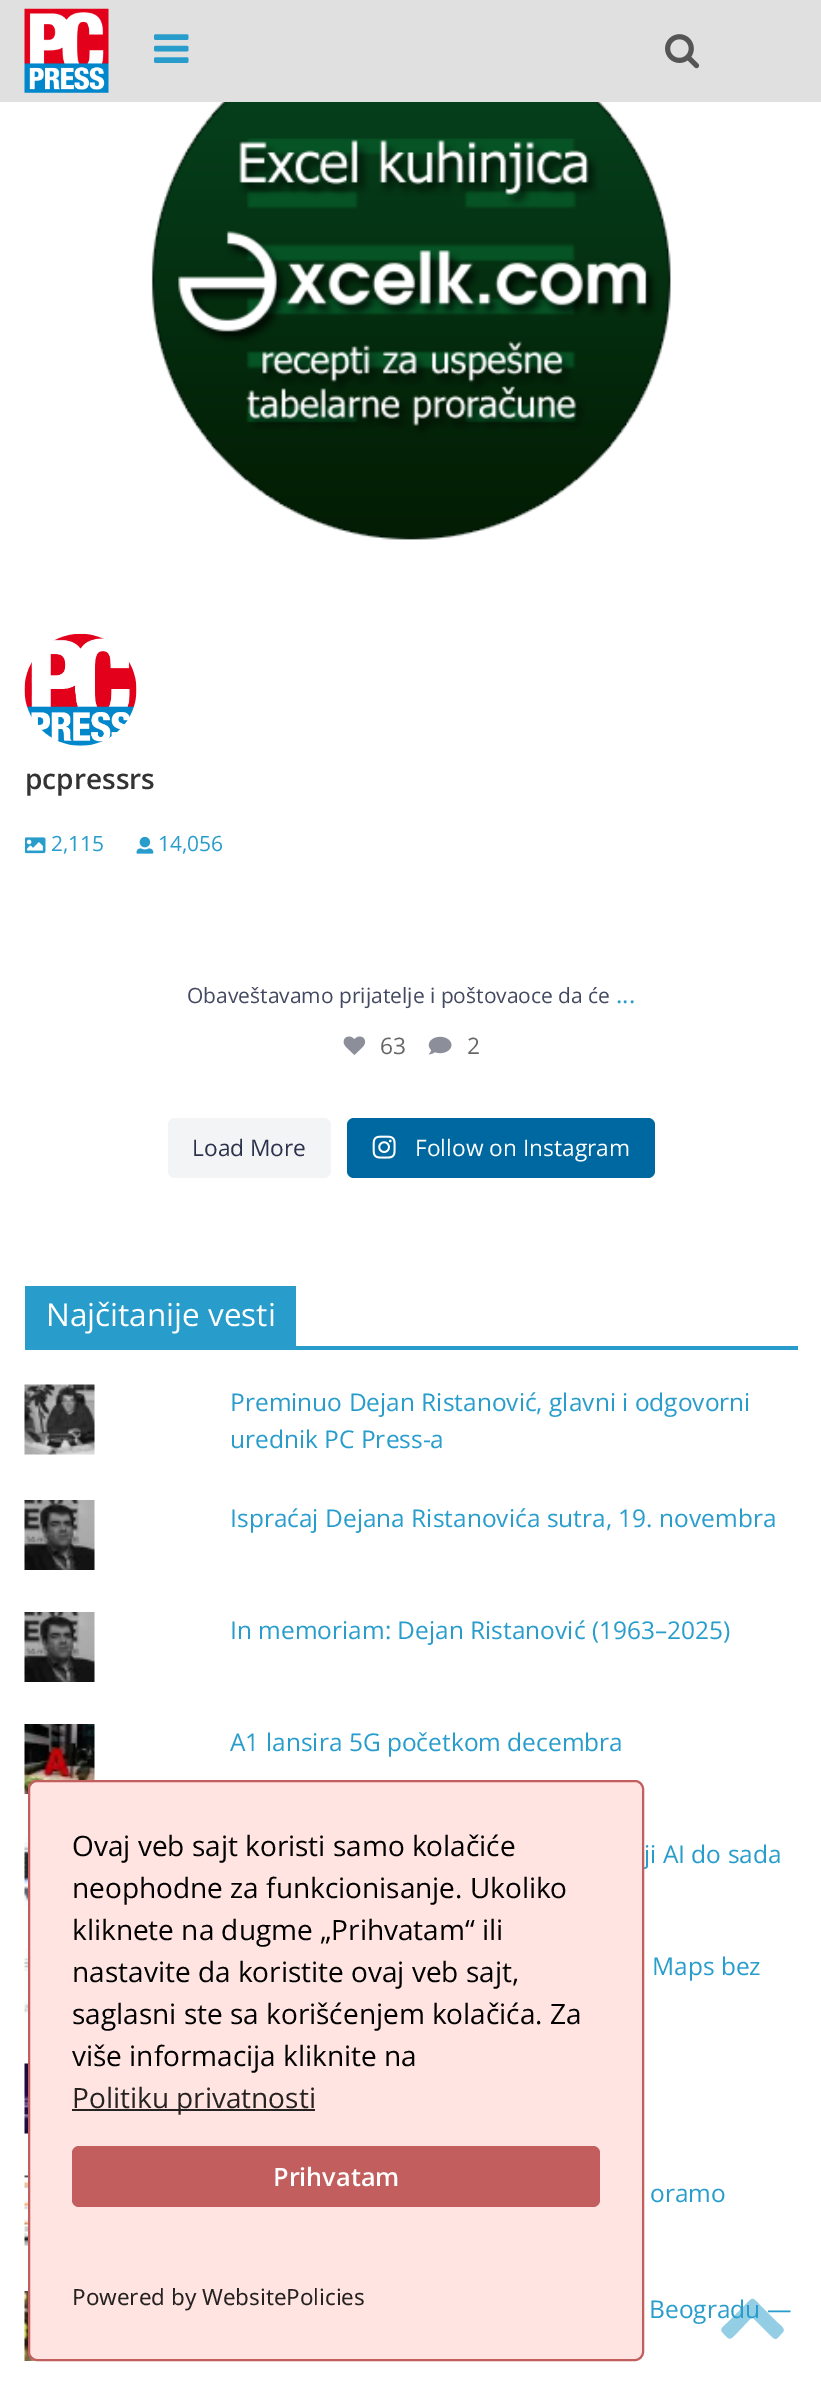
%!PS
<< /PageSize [821 2388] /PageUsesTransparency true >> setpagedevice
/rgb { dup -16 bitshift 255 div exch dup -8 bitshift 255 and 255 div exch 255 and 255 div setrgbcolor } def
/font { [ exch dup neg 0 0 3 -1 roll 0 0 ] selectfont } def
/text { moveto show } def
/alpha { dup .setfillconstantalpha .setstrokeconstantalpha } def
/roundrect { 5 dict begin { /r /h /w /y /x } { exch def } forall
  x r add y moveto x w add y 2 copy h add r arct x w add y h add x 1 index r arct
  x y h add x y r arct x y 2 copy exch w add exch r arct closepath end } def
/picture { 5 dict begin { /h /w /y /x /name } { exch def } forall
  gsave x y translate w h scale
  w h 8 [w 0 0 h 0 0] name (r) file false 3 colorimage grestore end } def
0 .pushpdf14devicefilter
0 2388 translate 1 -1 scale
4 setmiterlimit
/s1 { /OpenSans-SemiBold 28 font 16#333333 rgb } def
/s2 { /OpenSans-Regular 21 font 16#289DCC rgb } def
/s3 { /OpenSans-Regular 21 font 16#434960 rgb } def
/s4 { /OpenSans-Regular 24.5 font 16#289DCC rgb } def
/s5 { /OpenSans-Regular 22.75 font 16#666666 rgb } def
/s6 { /OpenSans-Regular 22.75 font 16#2C324C rgb } def
/s7 { /OpenSans-Regular 22.75 font 16#FFFFFF rgb } def
/s8 { /OpenSans-Regular 31.5 font 16#FFFFFF rgb } def
/s9 { /OpenSans-Regular 28 font 16#000000 rgb } def
/s10 { /OpenSans-Regular 28 font 16#262222 rgb } def
/s11 { /OpenSans-SemiBold 25.25 font 16#FFFFFF rgb } def
/s12 { /NotoSans-Regular 22.4 font 16#262222 rgb } def
16#FFFFFF rgb
0 0 821 2388 rectfill
16#E0E0E0 rgb
0 0 821 102 rectfill
(pic1.raw) 24 8 85 85 picture
(pic2.raw) 154 34 35 29 picture
(pic3.raw) 665 34 35 35 picture
(pic4.raw) 151 102 520 438 picture
(pic5.raw) 24 633 113 113 picture
s1
(pcpressrs) 25 789 text
(pic6.raw) 25 837 21 17 picture
s2
(2,115) 51 851 text
(pic7.raw) 136 836 18 18 picture
(14,056) 158 851 text
s3
(Obaveštavamo prijatelje i poštovaoce da će) 187 1003 text
s4
(...) 616 1003 text
(pic8.raw) 343 1036 23 19 picture
s5
(63) 380 1054 text
(pic9.raw) 428 1036 24 19 picture
(2) 467 1054 text
16#F3F4F5 rgb
168 1118 163 60 7 roundrect fill
s6
(Load More) 192 1156 text
16#0068A0 rgb
347 1118 308 60 7 roundrect fill
(pic10.raw) 372 1135 24 24 picture
s7
(Follow on Instagram) 415 1156 text
16#289DCC rgb
25 1346 773 4 rectfill
25 1286 271 60 rectfill
s8
(Najčitanije vesti) 46 1326 text
(pic11.raw) 24 1384 71 71 picture
s4
(Preminuo Dejan Ristanović, glavni i odgovorni) 230 1411 text
(urednik PC Press-a) 230 1448 text
(pic12.raw) 24 1500 71 70 picture
(Ispraćaj Dejana Ristanovića sutra, 19. novembra) 230 1527 text
(pic12.raw) 24 1612 71 70 picture
(In memoriam: Dejan Ristanović \(1963–2025\)) 230 1639 text
(pic13.raw) 24 1724 71 70 picture
(A1 lansira 5G početkom decembra) 230 1751 text
(pic14.raw) 24 1836 4 70 picture
(ji AI do sada) 644 1863 text
(pic15.raw) 24 1948 4 70 picture
(Maps bez) 652 1975 text
(pic16.raw) 24 2063 4 71 picture
(pic17.raw) 24 2175 4 71 picture
(oramo) 650 2202 text
(pic18.raw) 24 2291 13 70 picture
(Beogradu —) 649 2318 text
0.5 alpha
783 2332 moveto 776 2339 777 2342 770 2335 curveto 752 2317 lineto 735 2335 lineto 729 2341 729 2339 723 2333 curveto 719 2329 723 2327 727 2323 curveto 746 2304 lineto 753 2297 752 2297 759 2304 curveto 778 2323 lineto 779 2324 786 2329 783 2332 curveto closepath fill
1 alpha
16#FFE4E1 rgb
29 1781 614 579 8 roundrect gsave fill grestore
16#C25E5E rgb
2 setlinewidth
stroke
s9
(Ovaj veb sajt koristi samo kolačiće) 72 1856 text
(neophodne za funkcionisanje. Ukoliko) 72 1898 text
(kliknete na dugme „Prihvatam“ ili) 72 1940 text
(nastavite da koristite ovaj veb sajt,) 72 1982 text
(saglasni ste sa korišćenjem kolačića. Za) 72 2024 text
(više informacija kliknite na) 72 2066 text
16#262222 rgb
72 2109 243 2 rectfill
(Politiku privatnosti) 72 2108 text
16#C25E5E rgb
72 2146 528 61 7 roundrect fill
s11
(Prihvatam) 273 2186 text
s12
(Powered by WebsitePolicies) 72 2305 text
.poppdf14devicefilter showpage
